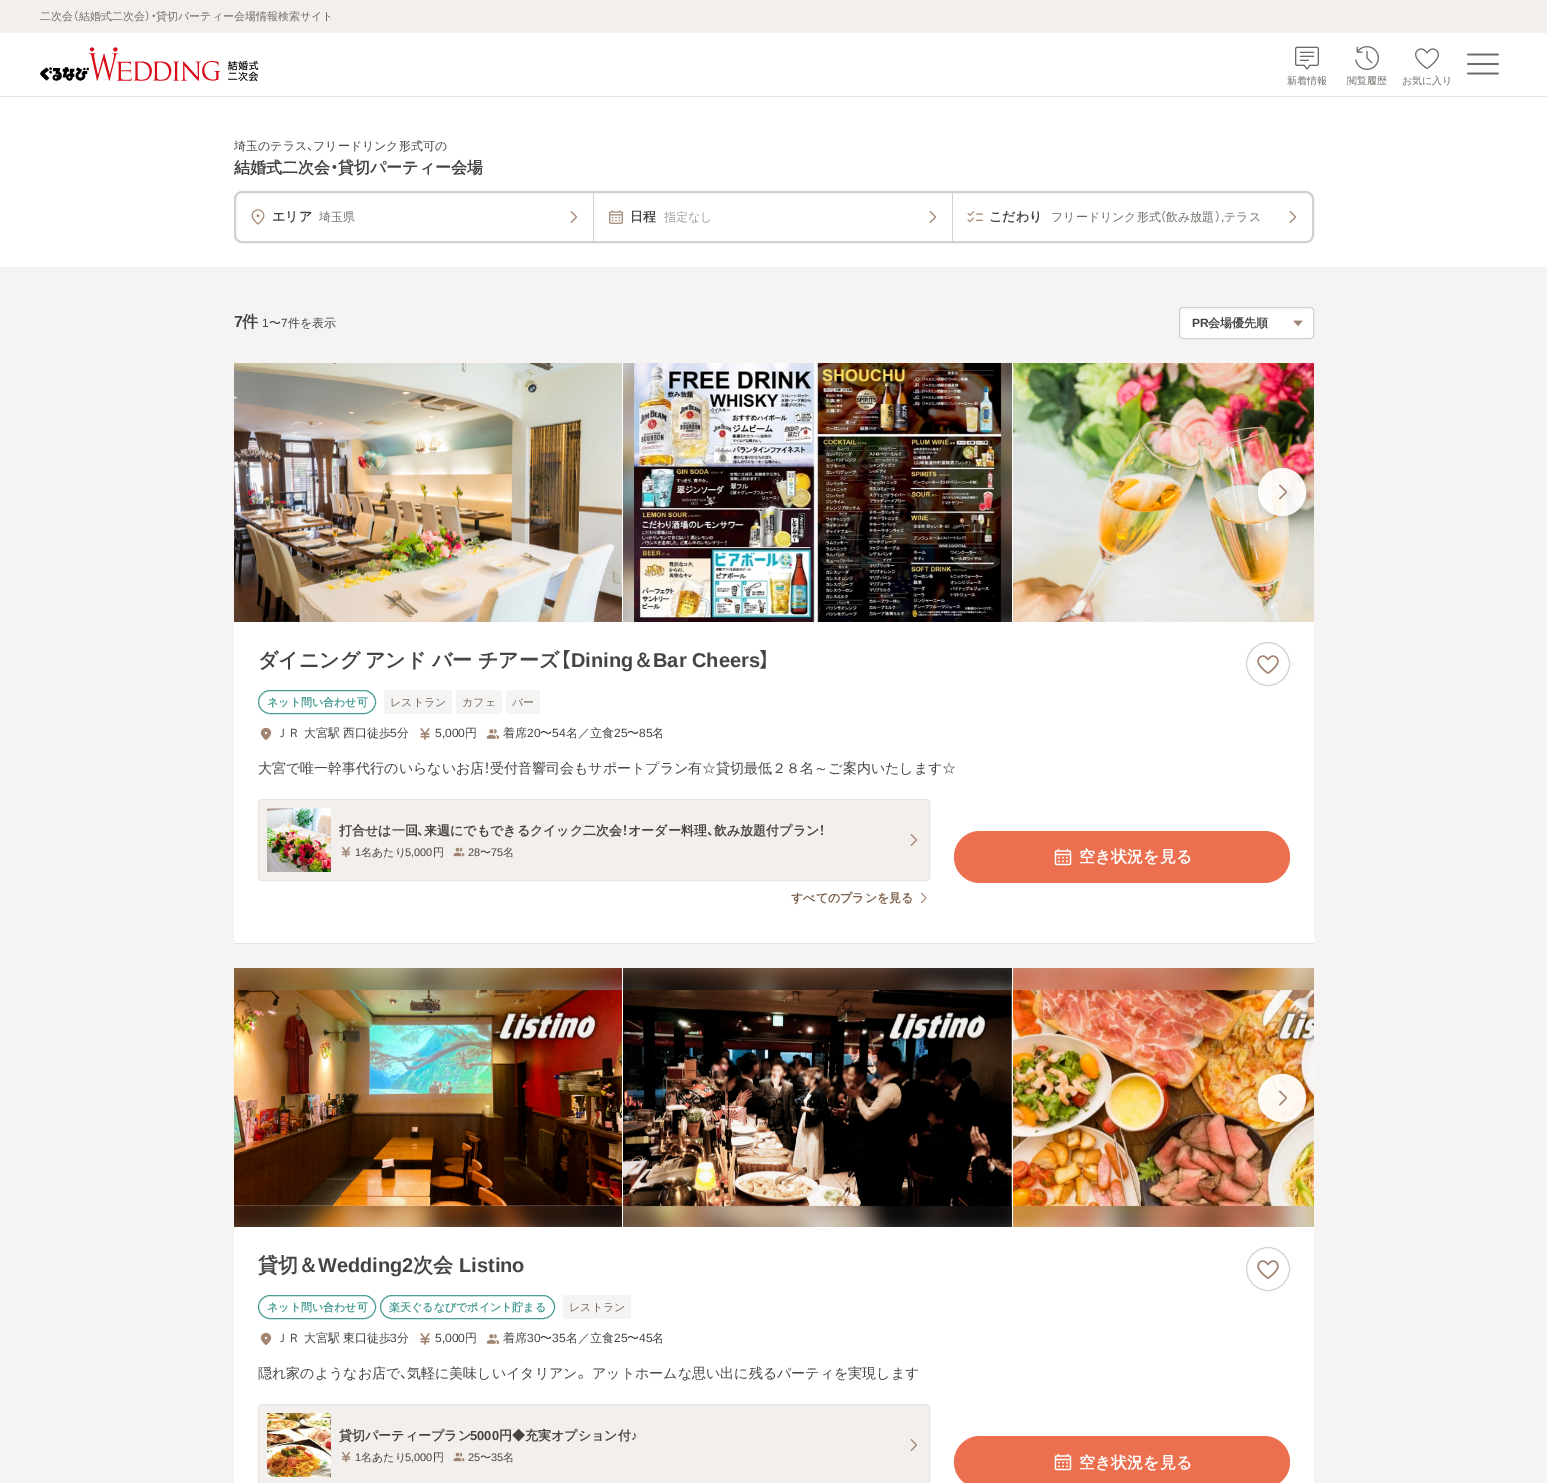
%!PS
<< /PageSize [1547 1483] /PageUsesTransparency true >> setpagedevice
/rgb { dup -16 bitshift 255 div exch dup -8 bitshift 255 and 255 div exch 255 and 255 div setrgbcolor } def
/font { [ exch dup neg 0 0 3 -1 roll 0 0 ] selectfont } def
/text { moveto show } def
/alpha { dup .setfillconstantalpha .setstrokeconstantalpha } def
/circle { newpath 0 360 arc closepath } def
/roundrect { 5 dict begin { /r /h /w /y /x } { exch def } forall
  x r add y moveto x w add y 2 copy h add r arct x w add y h add x 1 index r arct
  x y h add x y r arct x y 2 copy exch w add exch r arct closepath end } def
/shadow { 12 dict begin { /a /b /q /h /w /y /x } { exch def } forall gsave /was 0 def
  9 -2 -9 { dup b mul 4 div /e exch def 1 sub .425 mul 2.718 exch exp 1 add a .99 .min exch div /now exch def
    1 1 now sub 1 was sub div sub alpha /was now def
    w h .min e 2 mul add 0 gt { x e sub y e sub w e 2 mul add h e 2 mul add
      q e add b .6 mul add w h .min 2 div e add .min 0 .max roundrect fill } if } for grestore end } def
/picture { 5 dict begin { /h /w /y /x /name } { exch def } forall
  gsave x y translate w h scale
  w h 8 [w 0 0 h 0 0] name (r) file false 3 colorimage grestore end } def
0 .pushpdf14devicefilter
0 1483 translate 1 -1 scale
4 setmiterlimit
/s1 { /WenQuanYiZenHei-Medium 11 font 16#706A65 rgb } def
/s2 { /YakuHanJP-Regular 11 font 16#706A65 rgb } def
/s3 { /WenQuanYiZenHei-Medium 10 font 16#706A65 rgb } def
/s4 { /WenQuanYiZenHei-Medium 12 font 16#464443 rgb } def
/s5 { /YakuHanJP-Regular 12 font 16#464443 rgb } def
/s6 { /WenQuanYiZenHei-Bold 16 font 16#464443 rgb } def
/s7 { /YakuHanJP-SemiBold 16 font 16#464443 rgb } def
/s8 { /WenQuanYiZenHei-Bold 13 font 16#464443 rgb } def
/s9 { /WenQuanYiZenHei-Medium 12 font 16#706A65 rgb } def
/s10 { /WenQuanYiZenHei-Medium 12 font 16#A09D9A rgb } def
/s11 { /YakuHanJP-Regular 12 font 16#706A65 rgb } def
/s12 { /LiberationSans-Regular 12 font 16#706A65 rgb } def
/s13 { /LiberationSans-Bold 16 font 16#464443 rgb } def
/s14 { /LiberationSans-Regular 12 font 16#464443 rgb } def
/s15 { /LiberationSans-Bold 12 font 16#464443 rgb } def
/s16 { /WenQuanYiZenHei-Bold 12 font 16#464443 rgb } def
/s17 { /WenQuanYiZenHei-Bold 20 font 16#464443 rgb } def
/s18 { /YakuHanJP-SemiBold 20 font 16#464443 rgb } def
/s19 { /LiberationSans-Bold 20 font 16#464443 rgb } def
/s20 { /WenQuanYiZenHei-Bold 11 font 16#499C94 rgb } def
/s21 { /WenQuanYiZenHei-Medium 14 font 16#464443 rgb } def
/s22 { /YakuHanJP-Regular 14 font 16#464443 rgb } def
/s23 { /YakuHanJP-SemiBold 13 font 16#464443 rgb } def
/s24 { /LiberationSans-Regular 11 font 16#464443 rgb } def
/s25 { /WenQuanYiZenHei-Medium 11 font 16#464443 rgb } def
/s26 { /WenQuanYiZenHei-Bold 12 font 16#7B5D48 rgb } def
/s27 { /WenQuanYiZenHei-Bold 16 font 16#FFFFFF rgb } def
/s28 { /LiberationSans-Bold 13 font 16#464443 rgb } def
16#FFFFFF rgb
0 0 1547 1483 rectfill
16#F3EFEC rgb
0 0 1547 33 rectfill
s1
(二次会) 40 20 text
s2
(（) 73 20 text
s1
(結婚式二次会) 79 20 text
s2
(）・) 145 20 text
s1
(貸切パーティー会場情報検索サイト) 156 20 text
16#E7E5E4 rgb
0 96 1547 1 rectfill
(pic1.raw) 40 47 219 35 picture
(pic2.raw) 1467 53 32 22 picture
(pic3.raw) 1295 46 24 24 picture
s3
(新着情報) 1287 84 text
(pic4.raw) 1355 46 24 24 picture
(閲覧履歴) 1347 84 text
(pic5.raw) 1415 48 24 21 picture
(お気に入り) 1402 84 text
gsave
234 137 201 18 rectclip
s4
(埼玉のテラス) 234 150 text
grestore
s5
(、) 307 150 text
s4
(フリードリンク形式可) 313 150 text
(の) 435 150 text
s6
(結婚式二次会) 234 173 text
s7
(・) 330 173 text
s6
(貸切パーティー会場) 338 173 text
16#D4D0CD rgb
2 setlinewidth
235 192 1078 50 7 roundrect stroke
593 193 1 48 rectfill
(pic6.raw) 251 209 14 16 picture
s8
(エリア) 272 221 text
s9
(埼玉県) 319 221 text
(pic7.raw) 570 211 7 12 picture
16#D4D0CD rgb
952 193 1 48 rectfill
(pic8.raw) 609 210 14 14 picture
s8
(日程) 630 221 text
s10
(指定なし) 664 221 text
(pic7.raw) 929 211 7 12 picture
(pic9.raw) 967 211 16 12 picture
s8
(こだわり) 989 221 text
s9
(フリードリンク形式) 1051 221 text
s11
(（) 1160 221 text
s9
(飲み放題) 1166 221 text
s11
(）) 1215 221 text
s12
(,) 1221 221 text
s9
(テラス) 1224 221 text
(pic7.raw) 1289 211 7 12 picture
16#F5F4F3 rgb
0 267 1547 1216 rectfill
s13
(7) 234 327 text
s6
(件) 242 327 text
s14
(1) 262 327 text
s4
(〜) 269 327 text
s14
(7) 281 327 text
s4
(件を表示) 288 327 text
16#FFFFFF rgb
1179.5 307.5 134 31 3.5 roundrect gsave fill grestore
16#D4D0CD rgb
1 setlinewidth
stroke
s15
(PR) 1192 327 text
s16
(会場優先順) 1208 327 text
(pic10.raw) 1293 320 10 6 picture
16#FFFFFF rgb
234 363 1080 580 rectfill
16#E7E5E4 rgb
234 943 1080 1 rectfill
(pic12.raw) 234 621 388 1 picture
(pic11.raw) 234 363 388 259 picture
(pic13.raw) 623 363 389 259 picture
(pic14.raw) 634 363 368 259 picture
(pic15.raw) 1013 363 301 259 picture
gsave
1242 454 moveto 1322 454 lineto 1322 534 lineto 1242 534 lineto closepath 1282 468 moveto 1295.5 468 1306 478.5 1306 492 curveto 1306 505.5 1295.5 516 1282 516 curveto 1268.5 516 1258 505.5 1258 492 curveto 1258 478.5 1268.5 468 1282 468 curveto closepath eoclip newpath
16#464443 rgb
1258 470 48 48 24 5 0.24 shadow
grestore
0.92 alpha
16#FFFFFF rgb
1282 492 24 circle fill
1 alpha
(pic16.raw) 1279 484 8 16 picture
s17
(ダイニング) 258 667 text
(アンド) 365 667 text
(バー) 432 667 text
(チアーズ) 478 667 text
s18
(【) 560 667 text
s19
(Dining) 571 667 text
s17
(＆) 633 667 text
s19
(Bar Cheers) 653 667 text
s18
(】) 759 667 text
16#499C94 rgb
258.5 690.5 117 23 11.5 roundrect stroke
s20
(ネット問い合わせ可) 267 706 text
16#F5F4F3 rgb
384 690 68 24 2 roundrect fill
s1
(レストラン) 390 706 text
16#F5F4F3 rgb
456 690 46 24 2 roundrect fill
s1
(カフェ) 462 706 text
16#F5F4F3 rgb
506 690 34 24 2 roundrect fill
s1
(バー) 512 706 text
(pic17.raw) 260 727 12 13 picture
s4
(ＪＲ 大宮駅 西口徒歩) 276 737 text
s14
(5) 390 737 text
s4
(分) 397 737 text
(pic18.raw) 420 728 10 12 picture
s14
(5,000) 435 737 text
s4
(円) 465 737 text
(pic19.raw) 486 729 14 10 picture
(着席) 503 737 text
s14
(20) 527 737 text
s4
(〜) 540 737 text
s14
(54) 552 737 text
s4
(名／立食) 566 737 text
s14
(25) 614 737 text
s4
(〜) 627 737 text
s14
(85) 639 737 text
s4
(名) 652 737 text
s21
(大宮で唯一幹事代行のいらないお店) 258 773 text
s22
(！) 484 773 text
s21
(受付音響司会もサポートプラン有☆貸切最低２８名～ご案内いたします☆) 490 773 text
16#D4D0CD rgb
1268 664 21.5 circle stroke
(pic20.raw) 1257 655 22 19 picture
16#F3EFEC rgb
258.5 799.5 671 81 3.5 roundrect gsave fill grestore
16#E7E5E4 rgb
stroke
(pic21.raw) 267 808 64 64 picture
s8
(打合せは一回) 339 835 text
s23
(、) 417 835 text
s8
(来週にでもできるクイック二次会) 424 835 text
s23
(！) 622 835 text
s8
(オーダー料理) 628 835 text
s23
(、) 707 835 text
s8
(飲み放題付プラン) 714 835 text
s23
(！) 819 835 text
(pic22.raw) 342 846 8 12 picture
s24
(1) 355 856 text
s25
(名あたり) 361 856 text
s24
(5,000) 405 856 text
s25
(円) 433 856 text
(pic23.raw) 453 847 12 10 picture
s24
(28) 468 856 text
s25
(〜) 480 856 text
s24
(75) 491 856 text
s25
(名) 503 856 text
(pic24.raw) 910 834 7 12 picture
s26
(すべてのプランを見る) 791 902 text
(pic25.raw) 920 892 7 12 picture
16#EC6F50 rgb
954 831 336 52 26 roundrect fill
(pic26.raw) 1054 848 18 18 picture
s27
(空き状況を見る) 1079 862 text
234 968 1080 515 rectfill
(pic27.raw) 234 968 388 259 picture
(pic28.raw) 234 990 388 217 picture
(pic29.raw) 623 968 389 259 picture
(pic30.raw) 623 990 389 217 picture
(pic31.raw) 1013 968 301 259 picture
(pic32.raw) 1013 990 301 217 picture
gsave
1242 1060 moveto 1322 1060 lineto 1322 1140 lineto 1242 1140 lineto closepath 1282 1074 moveto 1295.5 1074 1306 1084.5 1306 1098 curveto 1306 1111.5 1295.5 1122 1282 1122 curveto 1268.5 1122 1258 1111.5 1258 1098 curveto 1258 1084.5 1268.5 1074 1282 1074 curveto closepath eoclip newpath
16#464443 rgb
1258 1076 48 48 24 5 0.24 shadow
grestore
0.92 alpha
1282 1098 24 circle fill
1 alpha
(pic33.raw) 1279 1090 8 16 picture
s17
(貸切＆) 258 1272 text
s19
(Wedding2) 318 1272 text
s17
(次会) 413 1272 text
s19
(Listino) 459 1272 text
16#499C94 rgb
258.5 1295.5 117 23 11.5 roundrect stroke
s20
(ネット問い合わせ可) 267 1311 text
380.5 1295.5 174 23 11.5 roundrect stroke
(楽天ぐるなびでポイント貯まる) 389 1311 text
16#F5F4F3 rgb
563 1295 68 24 2 roundrect fill
s1
(レストラン) 569 1311 text
(pic17.raw) 260 1332 12 13 picture
s4
(ＪＲ 大宮駅 東口徒歩) 276 1342 text
s14
(3) 390 1342 text
s4
(分) 397 1342 text
(pic18.raw) 420 1333 10 12 picture
s14
(5,000) 435 1342 text
s4
(円) 465 1342 text
(pic19.raw) 486 1334 14 10 picture
(着席) 503 1342 text
s14
(30) 527 1342 text
s4
(〜) 540 1342 text
s14
(35) 552 1342 text
s4
(名／立食) 566 1342 text
s14
(25) 614 1342 text
s4
(〜) 627 1342 text
s14
(45) 639 1342 text
s4
(名) 652 1342 text
s21
(隠れ家のようなお店で) 258 1378 text
s22
(、) 400 1378 text
s21
(気軽に美味しいイタリアン) 407 1378 text
s22
(。) 578 1378 text
s21
(アットホームな思い出に残るパーティを実現します) 592 1378 text
16#D4D0CD rgb
1268 1269 21.5 circle stroke
(pic20.raw) 1257 1260 22 19 picture
16#F3EFEC rgb
258.5 1404.5 671 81 3.5 roundrect gsave fill grestore
16#E7E5E4 rgb
stroke
(pic34.raw) 267 1413 64 64 picture
s8
(貸切パーティープラン) 339 1440 text
s28
(5000) 470 1440 text
s8
(円◆充実オプション付) 499 1440 text
s28
(♪) 631 1440 text
(pic22.raw) 342 1451 8 12 picture
s24
(1) 355 1461 text
s25
(名あたり) 361 1461 text
s24
(5,000) 405 1461 text
s25
(円) 433 1461 text
(pic23.raw) 453 1452 12 10 picture
s24
(25) 468 1461 text
s25
(〜) 480 1461 text
s24
(35) 491 1461 text
s25
(名) 503 1461 text
(pic24.raw) 910 1439 7 12 picture
16#EC6F50 rgb
954 1436 336 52 26 roundrect fill
(pic26.raw) 1054 1453 18 18 picture
s27
(空き状況を見る) 1079 1468 text
.poppdf14devicefilter showpage
